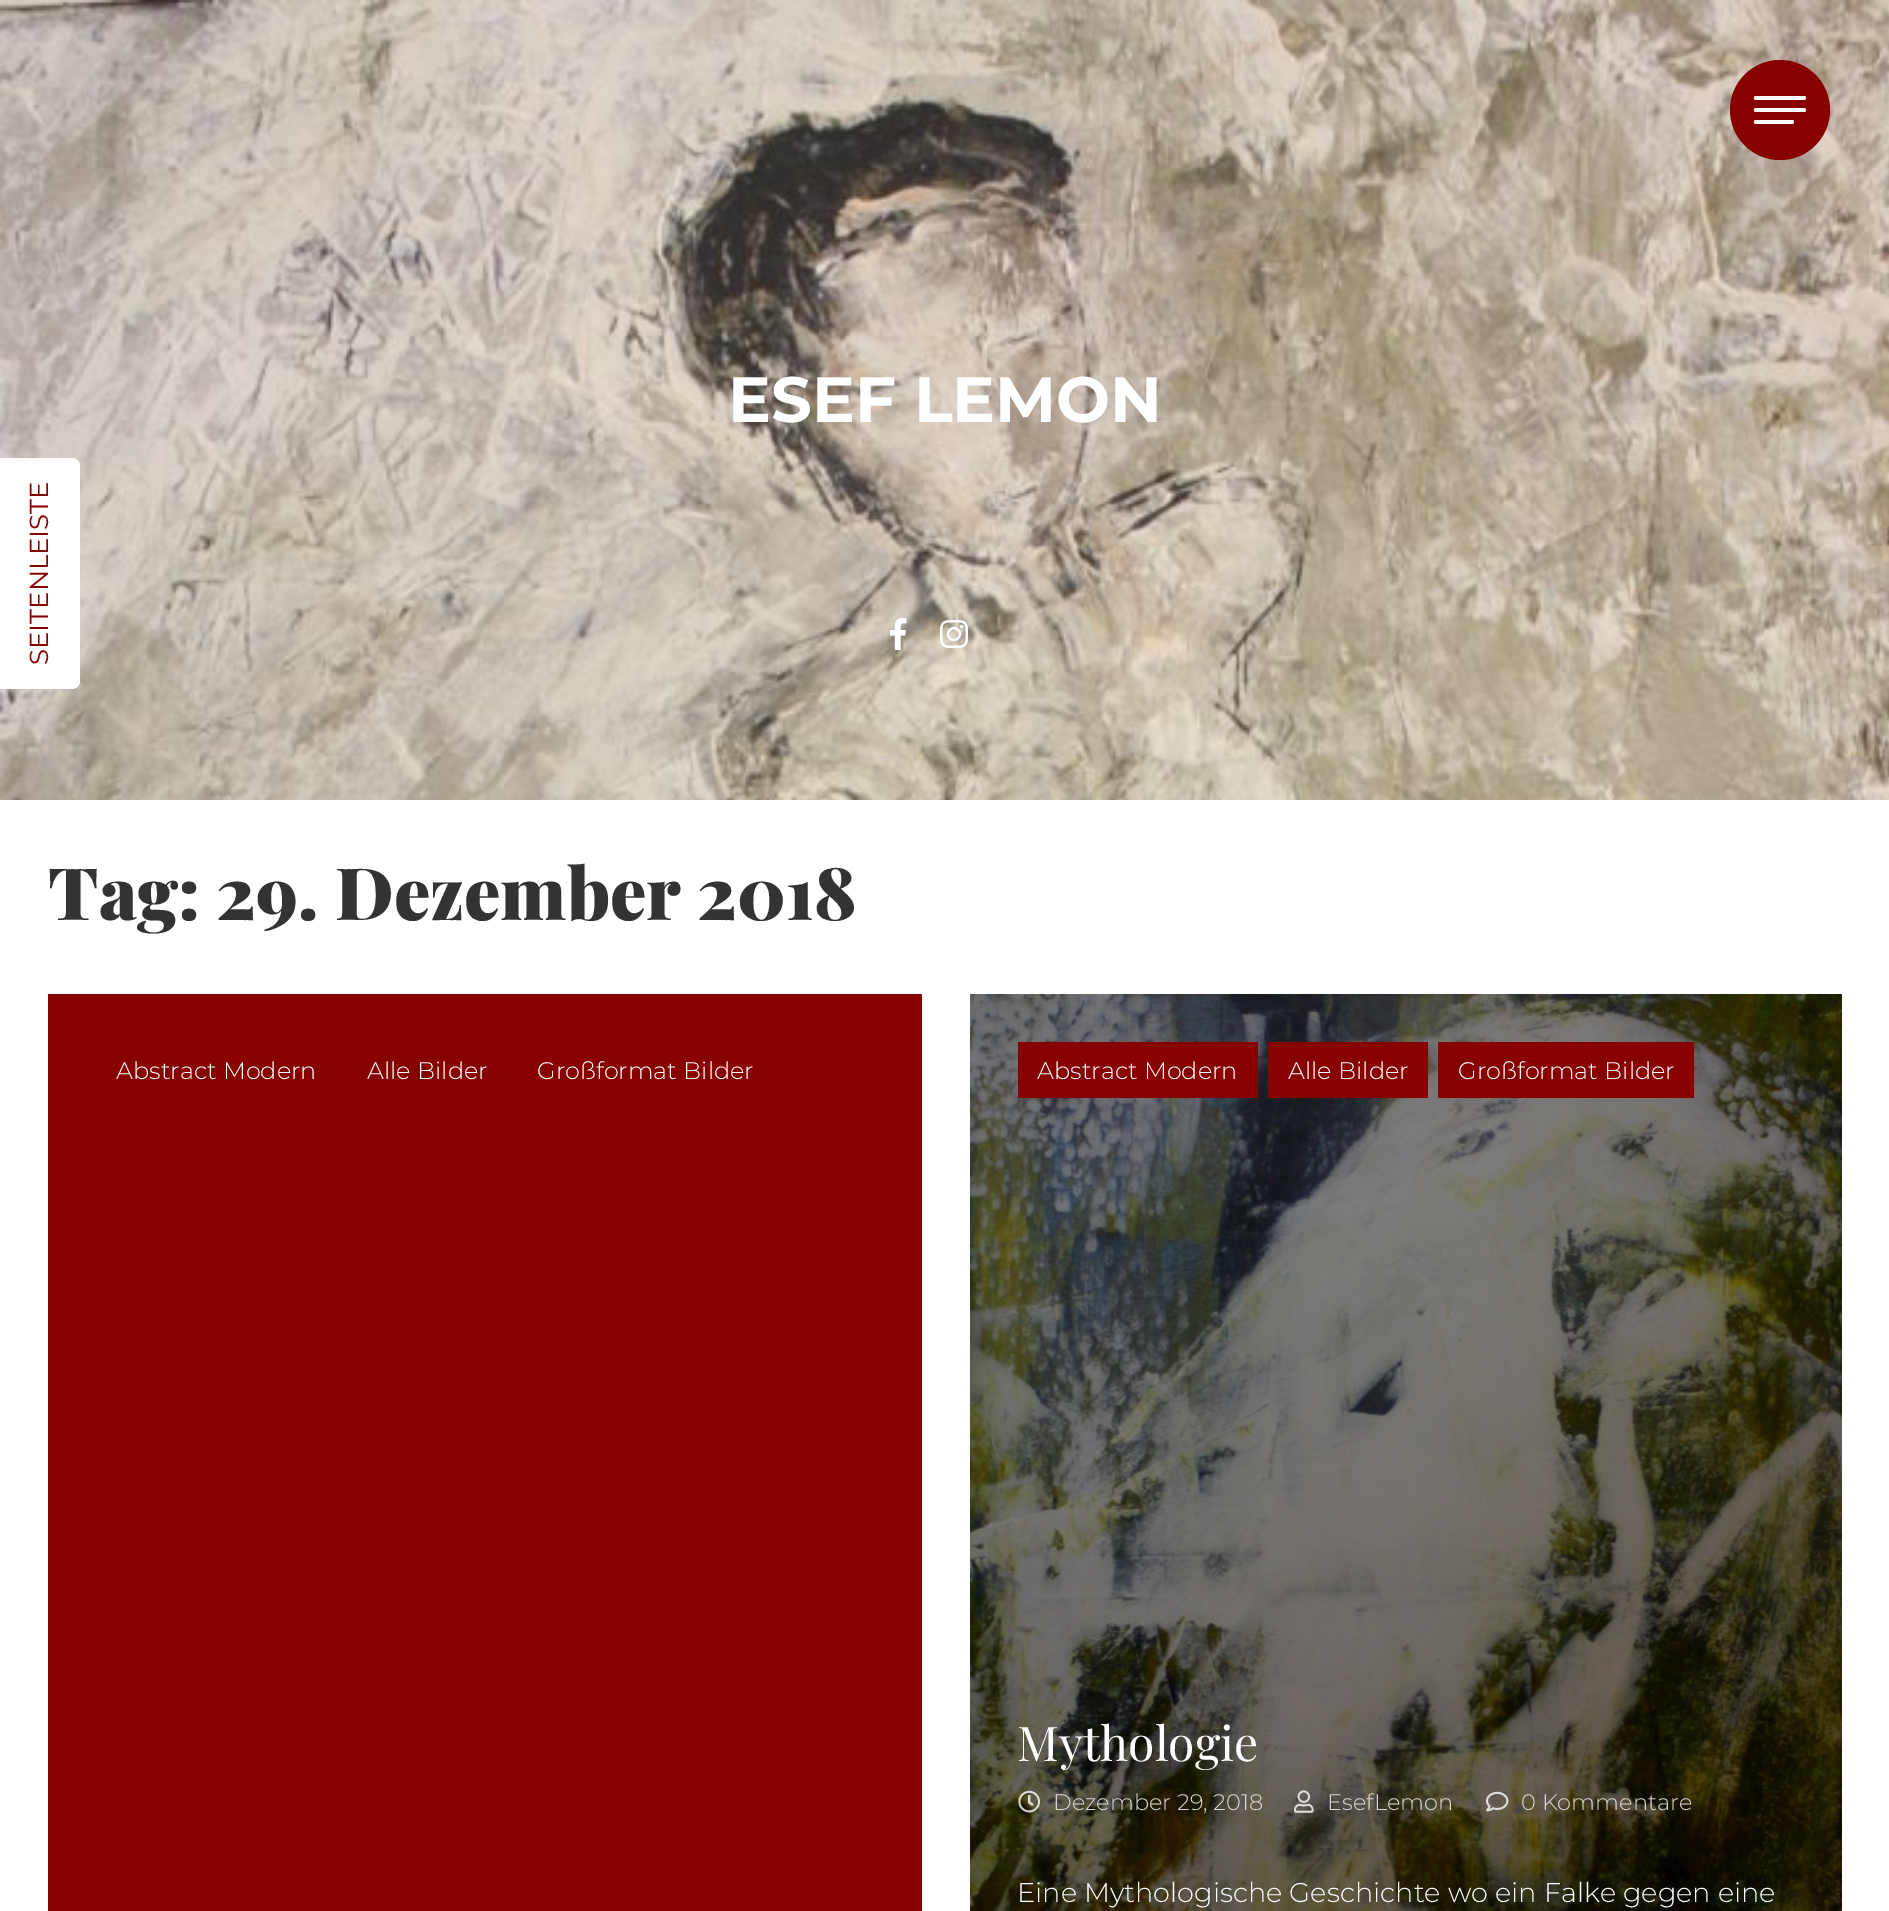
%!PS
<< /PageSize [1889 1911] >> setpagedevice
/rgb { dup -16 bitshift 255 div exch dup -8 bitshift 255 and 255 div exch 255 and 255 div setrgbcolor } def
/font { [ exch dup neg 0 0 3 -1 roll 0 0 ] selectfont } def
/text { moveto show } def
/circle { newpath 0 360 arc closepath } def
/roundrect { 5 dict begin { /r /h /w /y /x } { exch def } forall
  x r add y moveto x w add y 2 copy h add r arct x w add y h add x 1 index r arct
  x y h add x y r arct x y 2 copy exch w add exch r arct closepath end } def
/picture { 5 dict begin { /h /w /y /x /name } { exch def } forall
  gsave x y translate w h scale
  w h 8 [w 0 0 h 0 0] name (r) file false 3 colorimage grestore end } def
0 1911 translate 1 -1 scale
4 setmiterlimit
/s1 { /Montserrat-Bold 64 font 16#FFFFFF rgb } def
/s2 { /PlayfairDisplay-Black 72.3 font 16#333333 rgb } def
/s3 { /Montserrat-Light 24 font 16#FFFFFF rgb } def
/s4 { /PlayfairDisplay-Regular 48 font 16#FFFFFF rgb } def
/s5 { /Montserrat-Light 22.5 font 16#D8D7D4 rgb } def
/s6 { /Montserrat-Light 27.2 font 16#FFFFFF rgb } def
16#FFFFFF rgb
0 0 1889 1911 rectfill
(pic1.raw) 0 0 1889 800 picture
16#870101 rgb
1780 110 50 circle fill
16#FFFFFF rgb
1754 96 52 4 2 roundrect fill
1754 108 52 4 2 roundrect fill
1754 120 40 4 2 roundrect fill
s1
(ESEF LEMON) 728 422 text
0 689 moveto 0 458 lineto 72 458 lineto 76 458 80 461 80 466 curveto 80 681 lineto 80 686 76 689 72 689 curveto closepath fill
/Montserrat-Regular 26 font
16#870101 rgb
gsave 48 665 translate -90 rotate 0 0 moveto (SEITENLEISTE) show grestore
(pic2.raw) 890 618 17 32 picture
(pic3.raw) 940 620 28 28 picture
s2
(Tag: 29. Dezember 2018) 48 920 text
16#870101 rgb
48 994 874 917 rectfill
s3
(Abstract Modern) 116 1079 text
(Alle Bilder) 367 1079 text
(Großformat Bilder) 537 1079 text
(pic4.raw) 970 994 872 917 picture
16#870101 rgb
1018 1042 240 56 rectfill
s3
(Abstract Modern) 1037 1079 text
16#870101 rgb
1268 1042 160 56 rectfill
s3
(Alle Bilder) 1288 1079 text
16#870101 rgb
1438 1042 256 56 rectfill
s3
(Großformat Bilder) 1458 1079 text
s4
(Mythologie) 1017 1761 text
(pic5.raw) 1018 1790 23 23 picture
s5
(Dezember 29, 2018) 1053 1810 text
(pic6.raw) 1294 1790 20 23 picture
(EsefLemon) 1327 1810 text
(pic7.raw) 1486 1791 23 21 picture
(0 Kommentare) 1521 1810 text
s6
(Eine Mythologische Geschichte wo ein Falke gegen eine) 1017 1902 text
showpage
